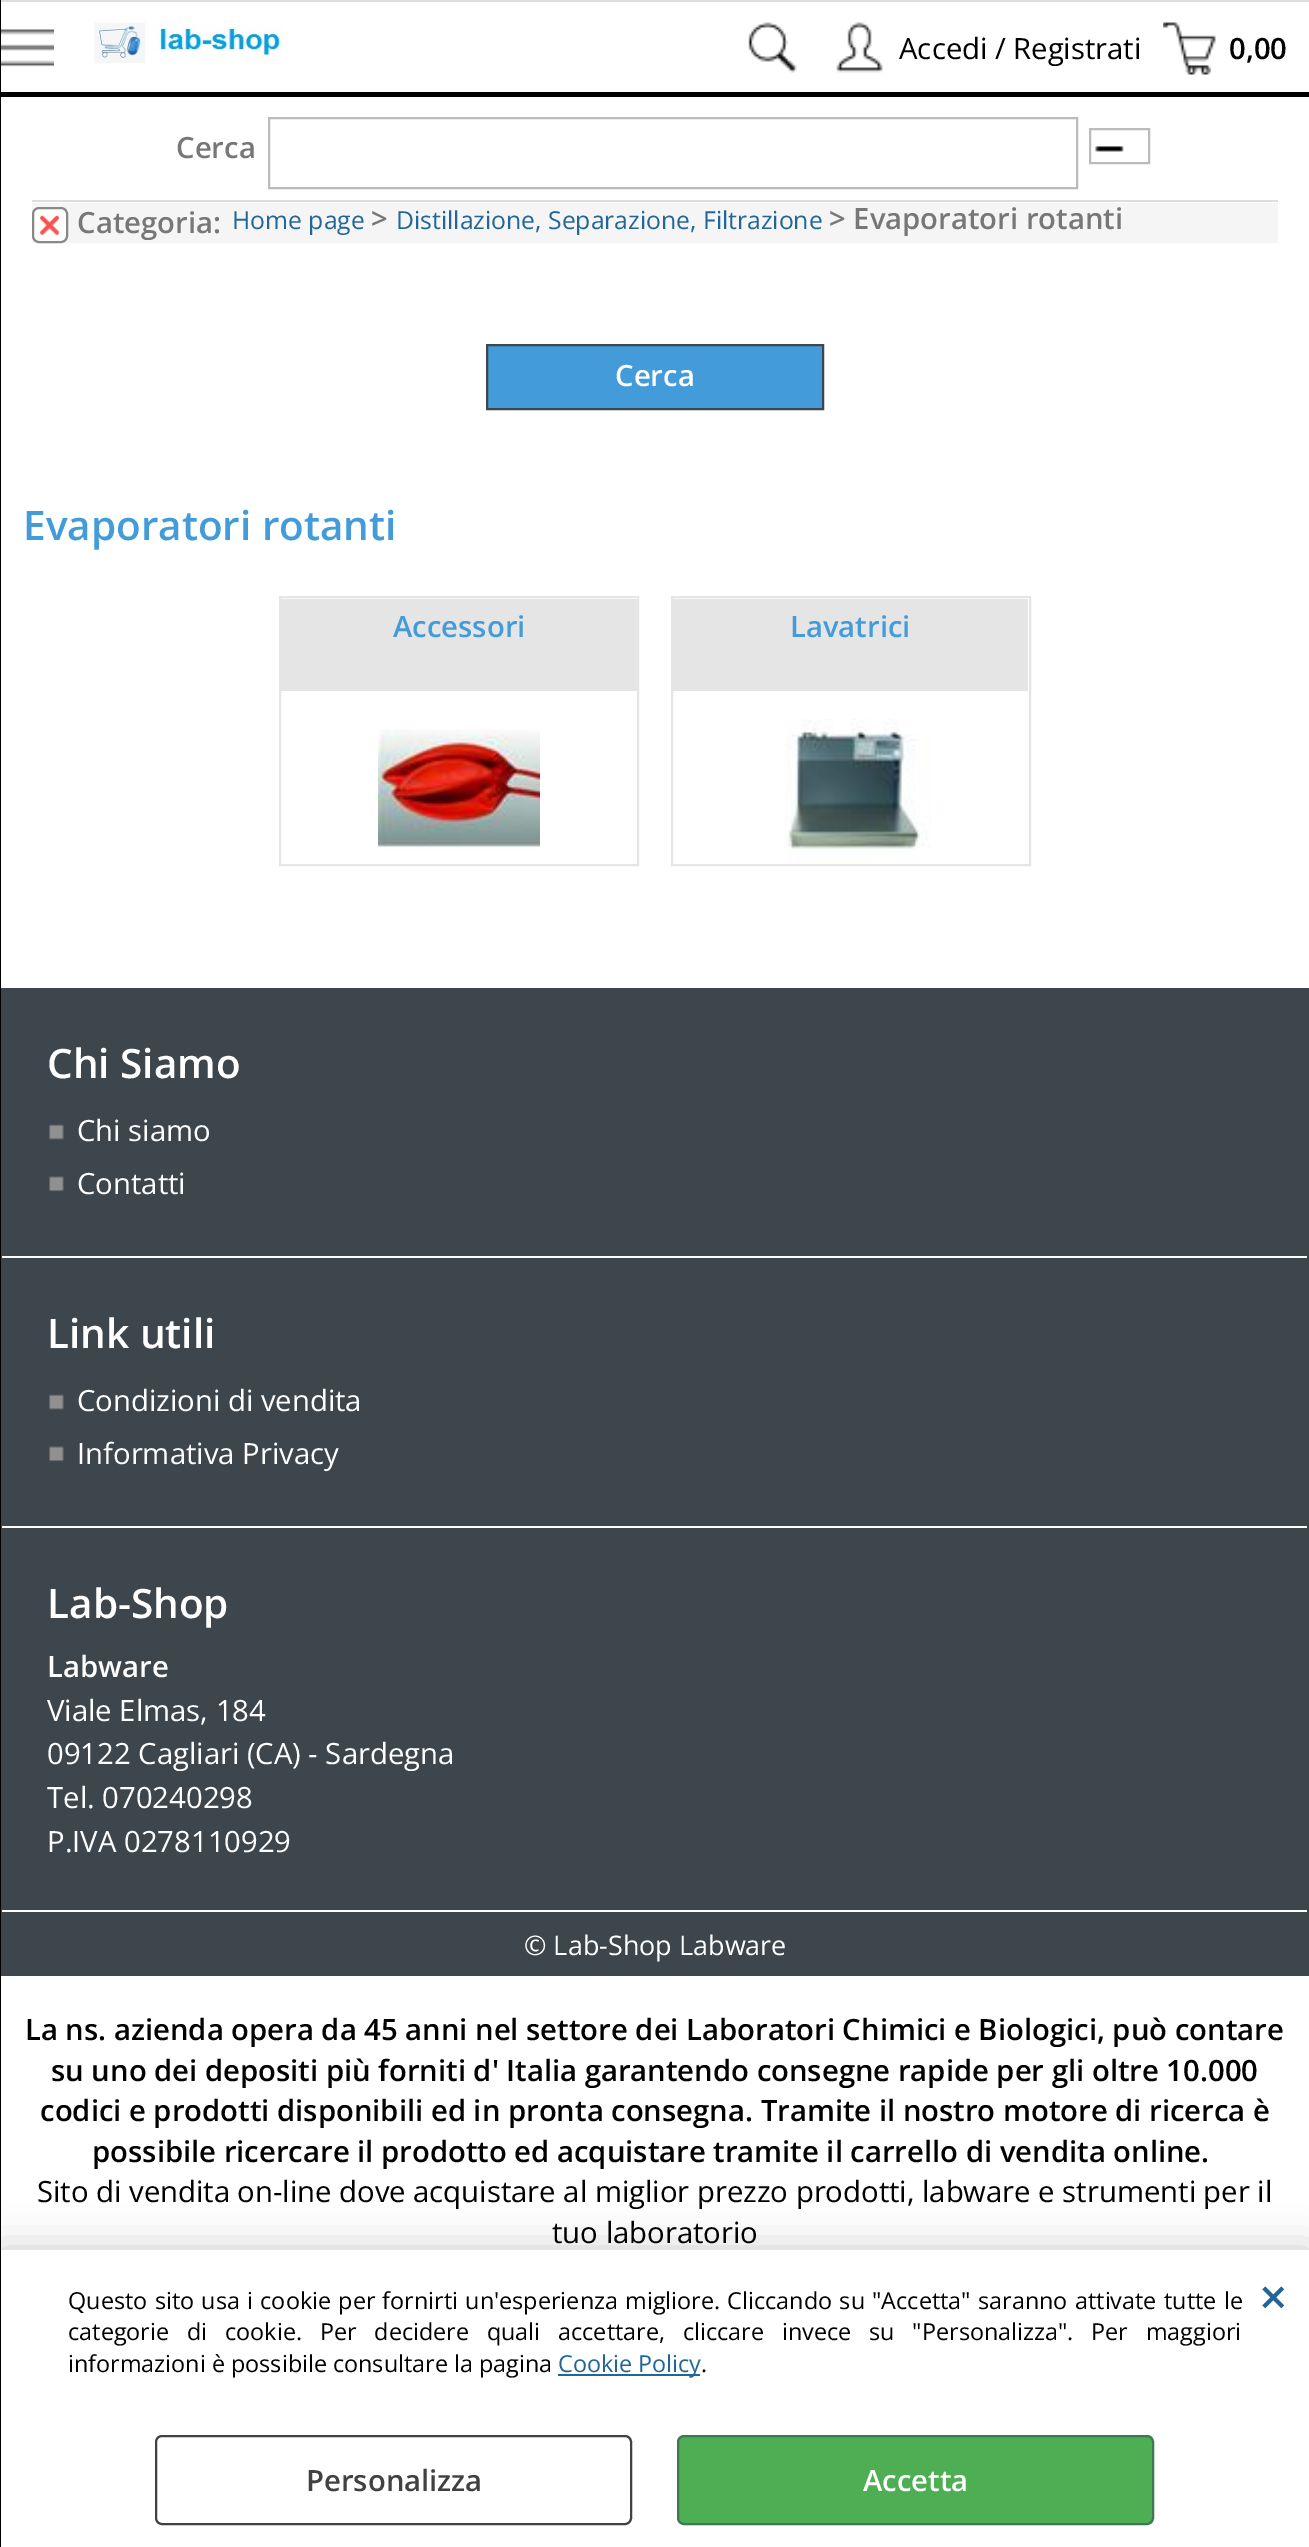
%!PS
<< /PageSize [1309 2547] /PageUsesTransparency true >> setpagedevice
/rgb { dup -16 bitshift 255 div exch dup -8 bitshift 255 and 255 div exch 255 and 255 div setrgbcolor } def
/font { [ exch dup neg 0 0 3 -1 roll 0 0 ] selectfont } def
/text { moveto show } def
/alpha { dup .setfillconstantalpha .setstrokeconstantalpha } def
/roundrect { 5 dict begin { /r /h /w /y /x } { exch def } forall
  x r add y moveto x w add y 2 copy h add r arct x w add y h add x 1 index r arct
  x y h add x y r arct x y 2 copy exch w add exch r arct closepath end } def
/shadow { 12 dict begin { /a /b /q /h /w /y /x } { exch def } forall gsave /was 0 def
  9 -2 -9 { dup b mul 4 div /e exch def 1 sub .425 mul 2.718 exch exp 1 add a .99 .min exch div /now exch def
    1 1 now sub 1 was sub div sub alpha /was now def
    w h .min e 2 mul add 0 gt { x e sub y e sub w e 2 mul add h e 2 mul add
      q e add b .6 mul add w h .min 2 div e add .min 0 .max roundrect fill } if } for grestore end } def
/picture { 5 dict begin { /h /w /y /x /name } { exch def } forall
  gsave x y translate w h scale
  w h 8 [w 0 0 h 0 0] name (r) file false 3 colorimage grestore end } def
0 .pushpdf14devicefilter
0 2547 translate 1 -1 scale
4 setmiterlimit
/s1 { /OpenSans-Regular 29.25 font 16#000000 rgb } def
/s2 { /OpenSans-SemiBold 29.25 font 16#000000 rgb } def
/s3 { /OpenSans-SemiBold 29.25 font 16#777777 rgb } def
/s4 { /OpenSans-Regular 24.75 font 16#226699 rgb } def
/s5 { /OpenSans-SemiBold 29.25 font 16#FFFFFF rgb } def
/s6 { /OpenSans-SemiBold 40.5 font 16#449BD9 rgb } def
/s7 { /OpenSans-SemiBold 29.25 font 16#449BD9 rgb } def
/s8 { /OpenSans-SemiBold 40.5 font 16#FFFFFF rgb } def
/s9 { /OpenSans-Regular 29.25 font 16#FFFFFF rgb } def
/s10 { /OpenSans-Regular 27 font 16#FFFFFF rgb } def
/s11 { /OpenSans-Regular 23.4 font 16#000000 rgb } def
/s12 { /OpenSans-Regular 23.4 font 16#226699 rgb } def
/s13 { /OpenSans-SemiBold 50 font 16#226699 rgb } def
/s14 { /OpenSans-SemiBold 29.25 font 16#424141 rgb } def
16#FFFFFF rgb
0 0 1309 2547 rectfill
16#DDDDDD rgb
0 0 1309 2 rectfill
16#000000 rgb
0 92 1309 5 rectfill
0 2250 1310 297 0 20 0.2 shadow
0 0 1 2547 rectfill
(pic1.raw) 1 29 53 38 picture
(pic2.raw) 94 22 190 42 picture
(pic3.raw) 748 22 49 51 picture
(pic4.raw) 836 22 47 51 picture
s1
(Accedi / Registrati) 899 59 text
(pic5.raw) 1163 22 53 53 picture
s2
(0,00) 1229 59 text
s3
(Cerca) 176 158 text
16#BBBBBB rgb
2 setlinewidth
269 118 808 70 rectstroke
(pic6.raw) 1095 146 29 6 picture
1090 129 59 34 rectstroke
16#DDDDDD rgb
32 200 1246 2 rectfill
16#F5F5F5 rgb
32 203 1246 40 rectfill
16#FFFFFF rgb
32 207 36 36 7 roundrect fill
(pic7.raw) 40 215 19 20 picture
16#888888 rgb
33 208 34 34 6 roundrect stroke
s3
(Categoria:) 77 233 text
s4
(Home page) 232 229 text
s3
(>) 371 229 text
s4
(Distillazione, Separazione, Filtrazione) 396 229 text
s3
(> Evaporatori rotanti) 829 229 text
16#449BD9 rgb
487 345 moveto 823 345 lineto 823 409 lineto 487 409 lineto closepath gsave fill grestore
16#3D464C rgb
stroke
s5
(Cerca) 615 386 text
s6
(Evaporatori rotanti) 23 540 text
16#E5E5E5 rgb
280 597 358 268 rectstroke
281 599 356 92 rectfill
s7
(Accessori) 393 637 text
(pic8.raw) 378 729 162 120 picture
16#E5E5E5 rgb
672 597 358 268 rectstroke
673 599 355 92 rectfill
s7
(Lavatrici) 790 637 text
(pic9.raw) 785 719 146 145 picture
16#3D464C rgb
1 988 1308 988 rectfill
16#FFFFFF rgb
2 1256 1305 2 rectfill
s8
(Chi Siamo) 47 1078 text
(pic10.raw) 49 1124 15 16 picture
s9
(Chi siamo) 77 1141 text
(pic11.raw) 49 1176 15 16 picture
(Contatti) 77 1194 text
2 1526 1305 2 rectfill
s8
(Link utili) 47 1348 text
(pic10.raw) 49 1394 15 16 picture
s9
(Condizioni di vendita) 77 1411 text
(pic11.raw) 49 1446 15 16 picture
(Informativa Privacy) 77 1464 text
2 1910 1305 2 rectfill
s8
(Lab-Shop) 47 1618 text
s5
(Labware) 47 1677 text
s9
(Viale Elmas, 184) 47 1721 text
(09122 Cagliari \(CA\) - Sardegna) 47 1764 text
(Tel. 070240298) 47 1808 text
(P.IVA 0278110929) 47 1852 text
s10
(© Lab-Shop Labware) 524 1955 text
s2
(La ns. azienda opera da 45 anni nel settore dei Laboratori Chimici e Biologici, può contare) 25 2040 text
(su uno dei depositi più forniti d' Italia garantendo consegne rapide per gli oltre 10.000) 51 2081 text
(codici e prodotti disponibili ed in pronta consegna. Tramite il nostro motore di ricerca è) 40 2121 text
(possibile ricercare il prodotto ed acquistare tramite il carrello di vendita online.) 92 2162 text
s1
(Sito di vendita on-line dove acquistare al miglior prezzo prodotti, labware e strumenti per il) 37 2202 text
(tuo laboratorio) 552 2243 text
16#FFFFFF rgb
1 2250 1308 297 rectfill
/OpenSans-Regular 23.4 font
16#000000 rgb
68 2309 moveto 1.2 0 32 (Questo sito usa i cookie per fornirti un'esperienza migliore. Cliccando su "Accetta" saranno attivate tutte le) widthshow
68 2340 moveto 11.75 0 32 (categorie di cookie. Per decidere quali accettare, cliccare invece su "Personalizza". Per maggiori) widthshow
(informazioni è possibile consultare la pagina) 68 2372 text
16#226699 rgb
558 2374 142 2 rectfill
(Cookie Policy) 558 2372 text
s11
(.) 701 2372 text
s13
(×) 1259 2315 text
16#424141 rgb
156 2436 475 88 6 roundrect stroke
s14
(Personalizza) 306 2491 text
16#4EAE54 rgb
678 2436 475 88 6 roundrect gsave fill grestore
16#3F7755 rgb
stroke
s5
(Accetta) 863 2491 text
.poppdf14devicefilter showpage
